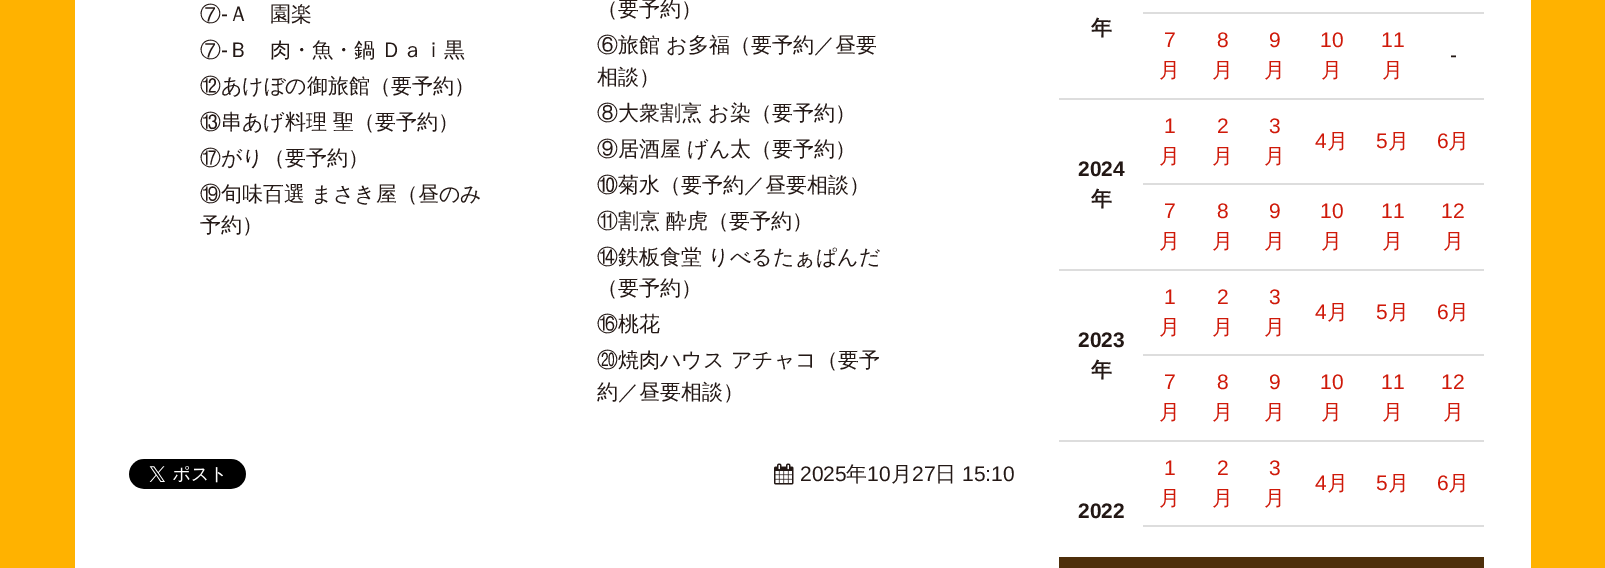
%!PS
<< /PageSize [1605 568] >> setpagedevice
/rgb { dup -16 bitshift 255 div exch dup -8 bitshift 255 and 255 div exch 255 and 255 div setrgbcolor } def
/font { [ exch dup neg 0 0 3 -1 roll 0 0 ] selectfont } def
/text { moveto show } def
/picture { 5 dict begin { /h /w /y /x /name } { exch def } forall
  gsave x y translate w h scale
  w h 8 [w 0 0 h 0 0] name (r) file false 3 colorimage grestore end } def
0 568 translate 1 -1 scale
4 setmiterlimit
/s1 { /WenQuanYiZenHei-Medium 21 font 16#231815 rgb } def
/s2 { /LiberationSans-Regular 21 font 16#231815 rgb } def
/s3 { /WenQuanYiZenHei-Bold 21 font 16#231815 rgb } def
/s4 { /LiberationSans-Regular 21 font 16#CF1909 rgb } def
/s5 { /WenQuanYiZenHei-Medium 21 font 16#CF1909 rgb } def
/s6 { /LiberationSans-Bold 21 font 16#231815 rgb } def
16#FFB200 rgb
0 0 1605 568 rectfill
16#FFFFFF rgb
75 0 1456 568 rectfill
s1
(⑦) 200 21 text
s2
(-) 221 21 text
s1
(Ａ　園楽) 228 21 text
(⑦) 200 57 text
s2
(-) 221 57 text
s1
(Ｂ　肉・魚・鍋 Ｄａｉ黒) 228 57 text
(⑫あけぼの御旅館（要予約）) 200 93 text
(⑬串あげ料理 聖（要予約）) 200 129 text
(⑰がり（要予約）) 200 165 text
(⑲旬味百選 まさき屋（昼のみ) 200 201 text
(予約）) 200 232 text
(（要予約）) 597 16 text
(⑥旅館 お多福（要予約／昼要) 597 52 text
(相談）) 597 84 text
(⑧大衆割烹 お染（要予約）) 597 120 text
(⑨居酒屋 げん太（要予約）) 597 156 text
(⑩菊水（要予約／昼要相談）) 597 192 text
(⑪割烹 酔虎（要予約）) 597 228 text
(⑭鉄板食堂 りべるたぁぱんだ) 597 264 text
(（要予約）) 597 295 text
(⑯桃花) 597 331 text
(⑳焼肉ハウス アチャコ（要予) 597 367 text
(約／昼要相談）) 597 399 text
(pic1.raw) 129 459 117 30 picture
(pic2.raw) 774 463 20 22 picture
s2
(2025) 800 481 text
s1
(年) 846 481 text
s2
(10) 867 481 text
s1
(月) 891 481 text
s2
(27) 912 481 text
s1
(日) 935 481 text
s2
(15:10) 962 481 text
s3
(年) 1091 35 text
s4
(7) 1164 47 text
s5
(月) 1159 77 text
s4
(8) 1217 47 text
s5
(月) 1212 77 text
s4
(9) 1269 47 text
s5
(月) 1264 77 text
s4
(10) 1320 47 text
s5
(月) 1321 77 text
s4
(11) 1381 47 text
s5
(月) 1382 77 text
16#DDDDDD rgb
1143 12 341 2 rectfill
s2
(-) 1450 62 text
s4
(1) 1164 133 text
s5
(月) 1159 163 text
s4
(2) 1217 133 text
s5
(月) 1212 163 text
s4
(3) 1269 133 text
s5
(月) 1264 163 text
s4
(4) 1315 148 text
s5
(月) 1327 148 text
s4
(5) 1376 148 text
s5
(月) 1388 148 text
16#DDDDDD rgb
1059 98 425 2 rectfill
s4
(6) 1437 148 text
s5
(月) 1448 148 text
s6
(2024) 1078 176 text
s3
(年) 1091 206 text
s4
(7) 1164 218 text
s5
(月) 1159 248 text
s4
(8) 1217 218 text
s5
(月) 1212 248 text
s4
(9) 1269 218 text
s5
(月) 1264 248 text
s4
(10) 1320 218 text
s5
(月) 1321 248 text
s4
(11) 1381 218 text
s5
(月) 1382 248 text
16#DDDDDD rgb
1143 183 341 2 rectfill
s4
(12) 1441 218 text
s5
(月) 1443 248 text
s4
(1) 1164 304 text
s5
(月) 1159 334 text
s4
(2) 1217 304 text
s5
(月) 1212 334 text
s4
(3) 1269 304 text
s5
(月) 1264 334 text
s4
(4) 1315 319 text
s5
(月) 1327 319 text
s4
(5) 1376 319 text
s5
(月) 1388 319 text
16#DDDDDD rgb
1059 269 425 2 rectfill
s4
(6) 1437 319 text
s5
(月) 1448 319 text
s6
(2023) 1078 347 text
s3
(年) 1091 377 text
s4
(7) 1164 389 text
s5
(月) 1159 419 text
s4
(8) 1217 389 text
s5
(月) 1212 419 text
s4
(9) 1269 389 text
s5
(月) 1264 419 text
s4
(10) 1320 389 text
s5
(月) 1321 419 text
s4
(11) 1381 389 text
s5
(月) 1382 419 text
16#DDDDDD rgb
1143 354 341 2 rectfill
s4
(12) 1441 389 text
s5
(月) 1443 419 text
s4
(1) 1164 475 text
s5
(月) 1159 505 text
s4
(2) 1217 475 text
s5
(月) 1212 505 text
s4
(3) 1269 475 text
s5
(月) 1264 505 text
s4
(4) 1315 490 text
s5
(月) 1327 490 text
s4
(5) 1376 490 text
s5
(月) 1388 490 text
16#DDDDDD rgb
1059 440 425 2 rectfill
s4
(6) 1437 490 text
s5
(月) 1448 490 text
s6
(2022) 1078 518 text
16#DDDDDD rgb
1143 525 341 2 rectfill
16#4E2F0B rgb
1059 557 425 11 rectfill
showpage
